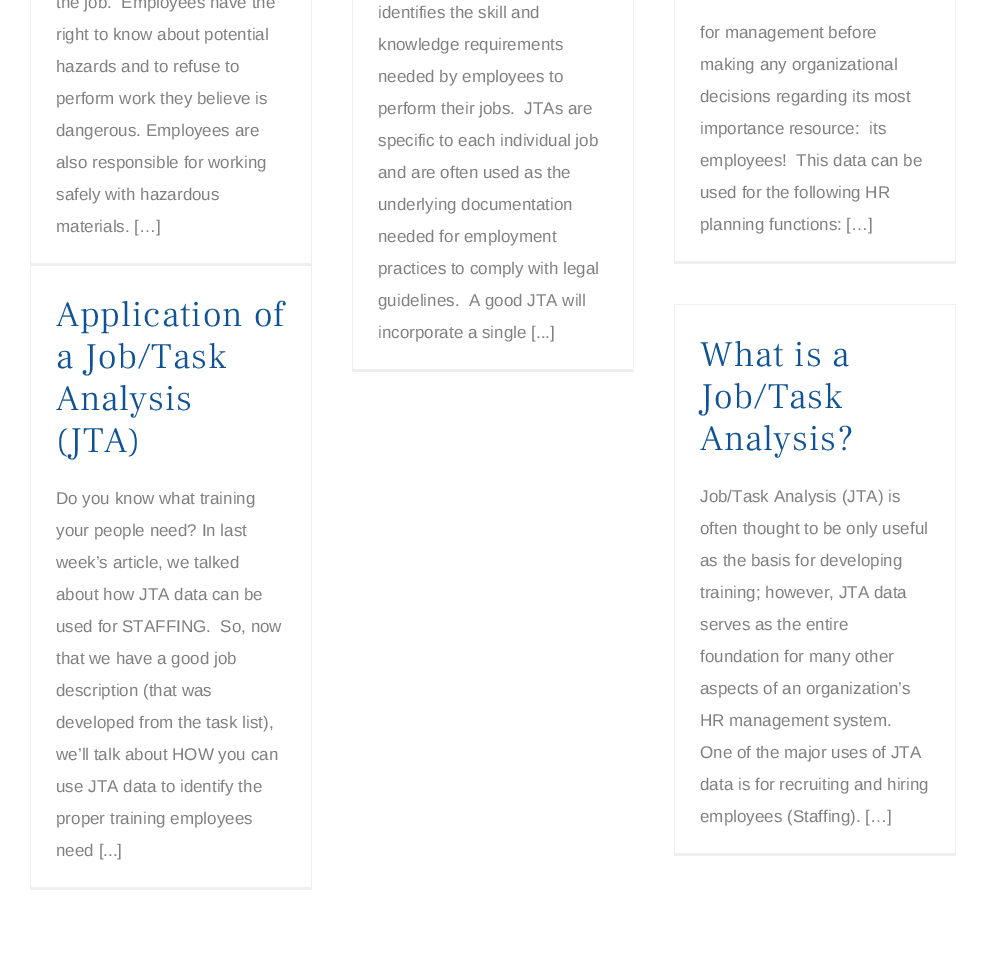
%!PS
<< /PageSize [985 964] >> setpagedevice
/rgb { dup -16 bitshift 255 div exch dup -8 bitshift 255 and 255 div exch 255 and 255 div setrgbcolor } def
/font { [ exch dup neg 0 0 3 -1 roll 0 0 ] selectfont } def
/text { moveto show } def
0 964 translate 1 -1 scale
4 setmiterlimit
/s1 { /LiberationSans-Regular 17 font 16#808080 rgb } def
16#FFFFFF rgb
0 0 985 964 rectfill
16#EFEFEF rgb
311 0 1 266 rectfill
30 263 282 3 rectfill
30 0 1 266 rectfill
s1
(the job.  Employees have the) 56 8 text
(right to know about potential) 56 40 text
(hazards and to refuse to) 56 72 text
(perform work they believe is) 56 104 text
(dangerous. Employees are) 56 136 text
(also responsible for working) 56 168 text
(safely with hazardous) 56 200 text
(materials. […]) 56 232 text
16#EFEFEF rgb
633 0 1 372 rectfill
352 369 282 3 rectfill
352 0 1 372 rectfill
s1
(identifies the skill and) 378 18 text
(knowledge requirements) 378 50 text
(needed by employees to) 378 82 text
(perform their jobs.  JTAs are) 378 114 text
(specific to each individual job) 378 146 text
(and are often used as the) 378 178 text
(underlying documentation) 378 210 text
(needed for employment) 378 242 text
(practices to comply with legal) 378 274 text
(guidelines.  A good JTA will) 378 306 text
(incorporate a single [...]) 378 338 text
16#EFEFEF rgb
955 0 1 264 rectfill
674 261 282 3 rectfill
674 0 1 264 rectfill
s1
(for management before) 700 38 text
(making any organizational) 700 70 text
(decisions regarding its most) 700 102 text
(importance resource:  its) 700 134 text
(employees!  This data can be) 700 166 text
(used for the following HR) 700 198 text
(planning functions: […]) 700 230 text
16#EFEFEF rgb
311 264 1 626 rectfill
30 887 282 3 rectfill
30 264 1 626 rectfill
/FrankRuhlLibre-Light 36 font
16#0F5296 rgb
56 326 moveto 1 0 (Application of) ashow
56 368 moveto 1 0 (a Job/Task) ashow
56 410 moveto 1 0 (Analysis) ashow
56 452 moveto 1 0 (\(JTA\)) ashow
s1
(Do you know what training) 56 504 text
(your people need? In last) 56 536 text
(week’s article, we talked) 56 568 text
(about how JTA data can be) 56 600 text
(used for STAFFING.  So, now) 56 632 text
(that we have a good job) 56 664 text
(description \(that was) 56 696 text
(developed from the task list\),) 56 728 text
(we’ll talk about HOW you can) 56 760 text
(use JTA data to identify the) 56 792 text
(proper training employees) 56 824 text
(need [...]) 56 856 text
16#EFEFEF rgb
674 304 282 1 rectfill
955 304 1 552 rectfill
674 853 282 3 rectfill
674 304 1 552 rectfill
/FrankRuhlLibre-Light 36 font
16#0F5296 rgb
700 366 moveto 1 0 (What is a) ashow
700 408 moveto 1 0 (Job/Task) ashow
700 450 moveto 1 0 (Analysis?) ashow
s1
(Job/Task Analysis \(JTA\) is) 700 502 text
(often thought to be only useful) 700 534 text
(as the basis for developing) 700 566 text
(training; however, JTA data) 700 598 text
(serves as the entire) 700 630 text
(foundation for many other) 700 662 text
(aspects of an organization’s) 700 694 text
(HR management system.) 700 726 text
(One of the major uses of JTA) 700 758 text
(data is for recruiting and hiring) 700 790 text
(employees \(Staffing\). […]) 700 822 text
showpage
